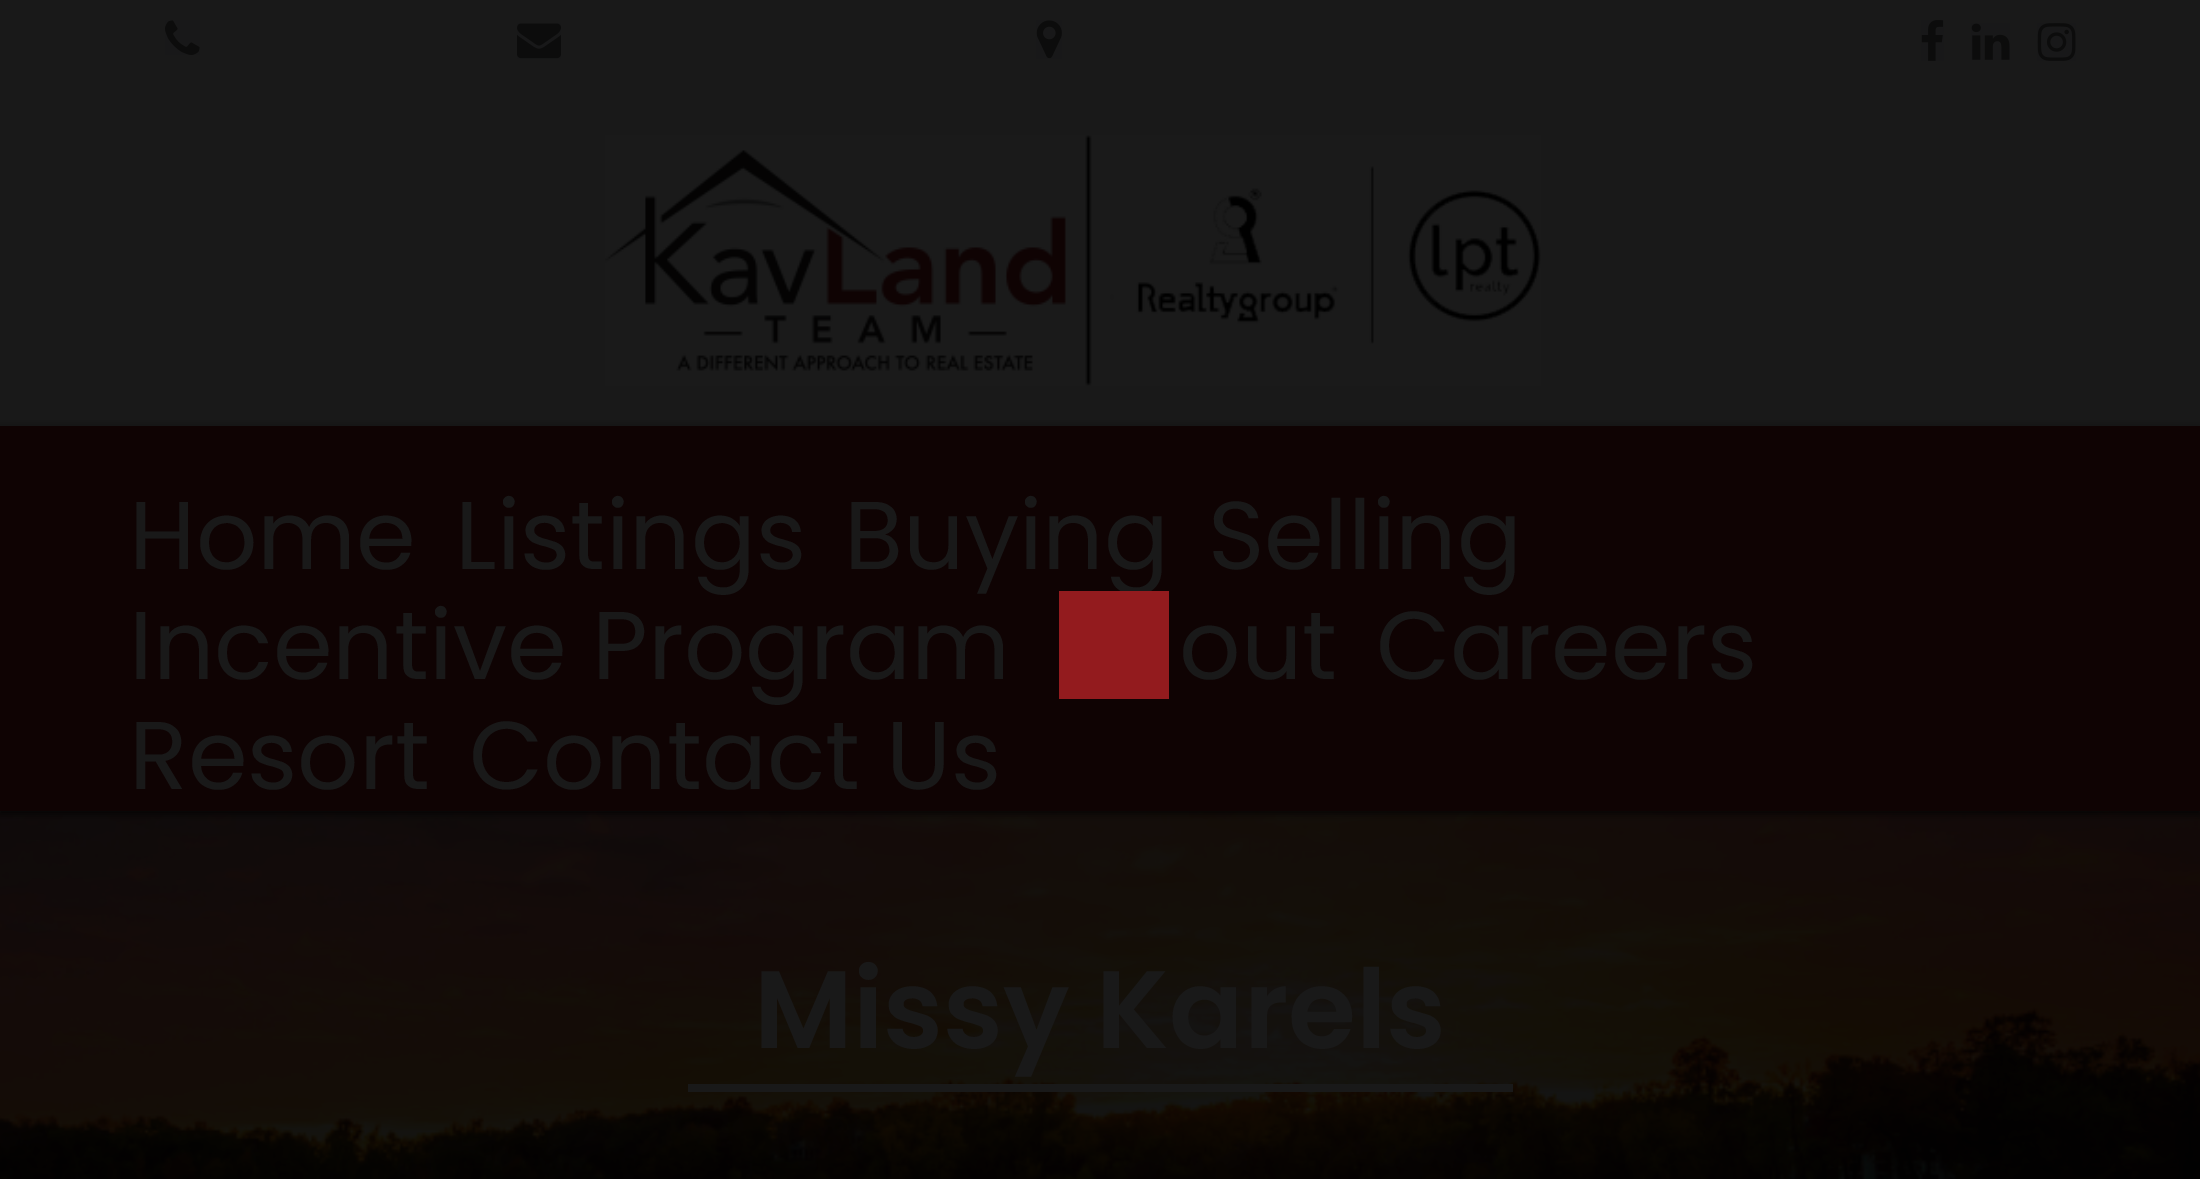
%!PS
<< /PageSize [2200 1179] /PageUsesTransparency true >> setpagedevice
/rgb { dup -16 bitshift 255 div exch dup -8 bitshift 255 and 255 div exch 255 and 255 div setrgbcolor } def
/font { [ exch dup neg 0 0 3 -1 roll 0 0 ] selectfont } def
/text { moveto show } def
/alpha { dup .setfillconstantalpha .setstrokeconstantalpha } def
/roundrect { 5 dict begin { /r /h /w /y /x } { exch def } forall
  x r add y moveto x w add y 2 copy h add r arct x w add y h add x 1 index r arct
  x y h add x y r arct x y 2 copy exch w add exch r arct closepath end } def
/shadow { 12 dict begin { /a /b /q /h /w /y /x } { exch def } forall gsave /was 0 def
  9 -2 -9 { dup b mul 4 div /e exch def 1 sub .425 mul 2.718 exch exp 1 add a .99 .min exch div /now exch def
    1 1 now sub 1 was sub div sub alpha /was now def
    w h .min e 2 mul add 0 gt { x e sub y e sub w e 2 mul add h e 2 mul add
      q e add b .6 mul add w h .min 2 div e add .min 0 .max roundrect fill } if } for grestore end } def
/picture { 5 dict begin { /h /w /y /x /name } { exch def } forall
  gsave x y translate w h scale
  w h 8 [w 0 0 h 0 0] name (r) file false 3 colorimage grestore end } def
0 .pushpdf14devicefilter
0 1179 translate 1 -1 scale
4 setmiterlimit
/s1 { /Poppins-Regular 96.25 font 16#191919 rgb } def
/s2 { /Poppins-SemiBold 110 font 16#191919 rgb } def
16#191919 rgb
0 0 2200 1179 rectfill
(pic1.raw) 165 20 35 35 picture
(pic2.raw) 517 23 44 36 picture
(pic3.raw) 1036 20 26 39 picture
(pic4.raw) 1921 20 23 41 picture
(pic5.raw) 1971 23 39 37 picture
(pic6.raw) 2037 23 39 38 picture
(pic7.raw) 605 135 936 251 picture
(pic8.raw) 0 811 2200 368 picture
16#000000 rgb
0 429 2200 385 0 4 0.72 shadow
16#0F0303 rgb
0 426 2200 385 rectfill
s1
(Home) 129 569 text
(Listings) 455 569 text
(Buying) 844 569 text
(Selling) 1208 569 text
(Incentive Program) 129 679 text
(out) 1179 679 text
(Careers) 1376 679 text
(Resort) 129 789 text
(Contact Us) 469 789 text
s2
(Missy Karels) 754 1048 text
688 1084 825 8 rectfill
16#931B1E rgb
1059 591 110 36 rectfill
1059 627 110 36 rectfill
1059 663 110 36 rectfill
.poppdf14devicefilter showpage
